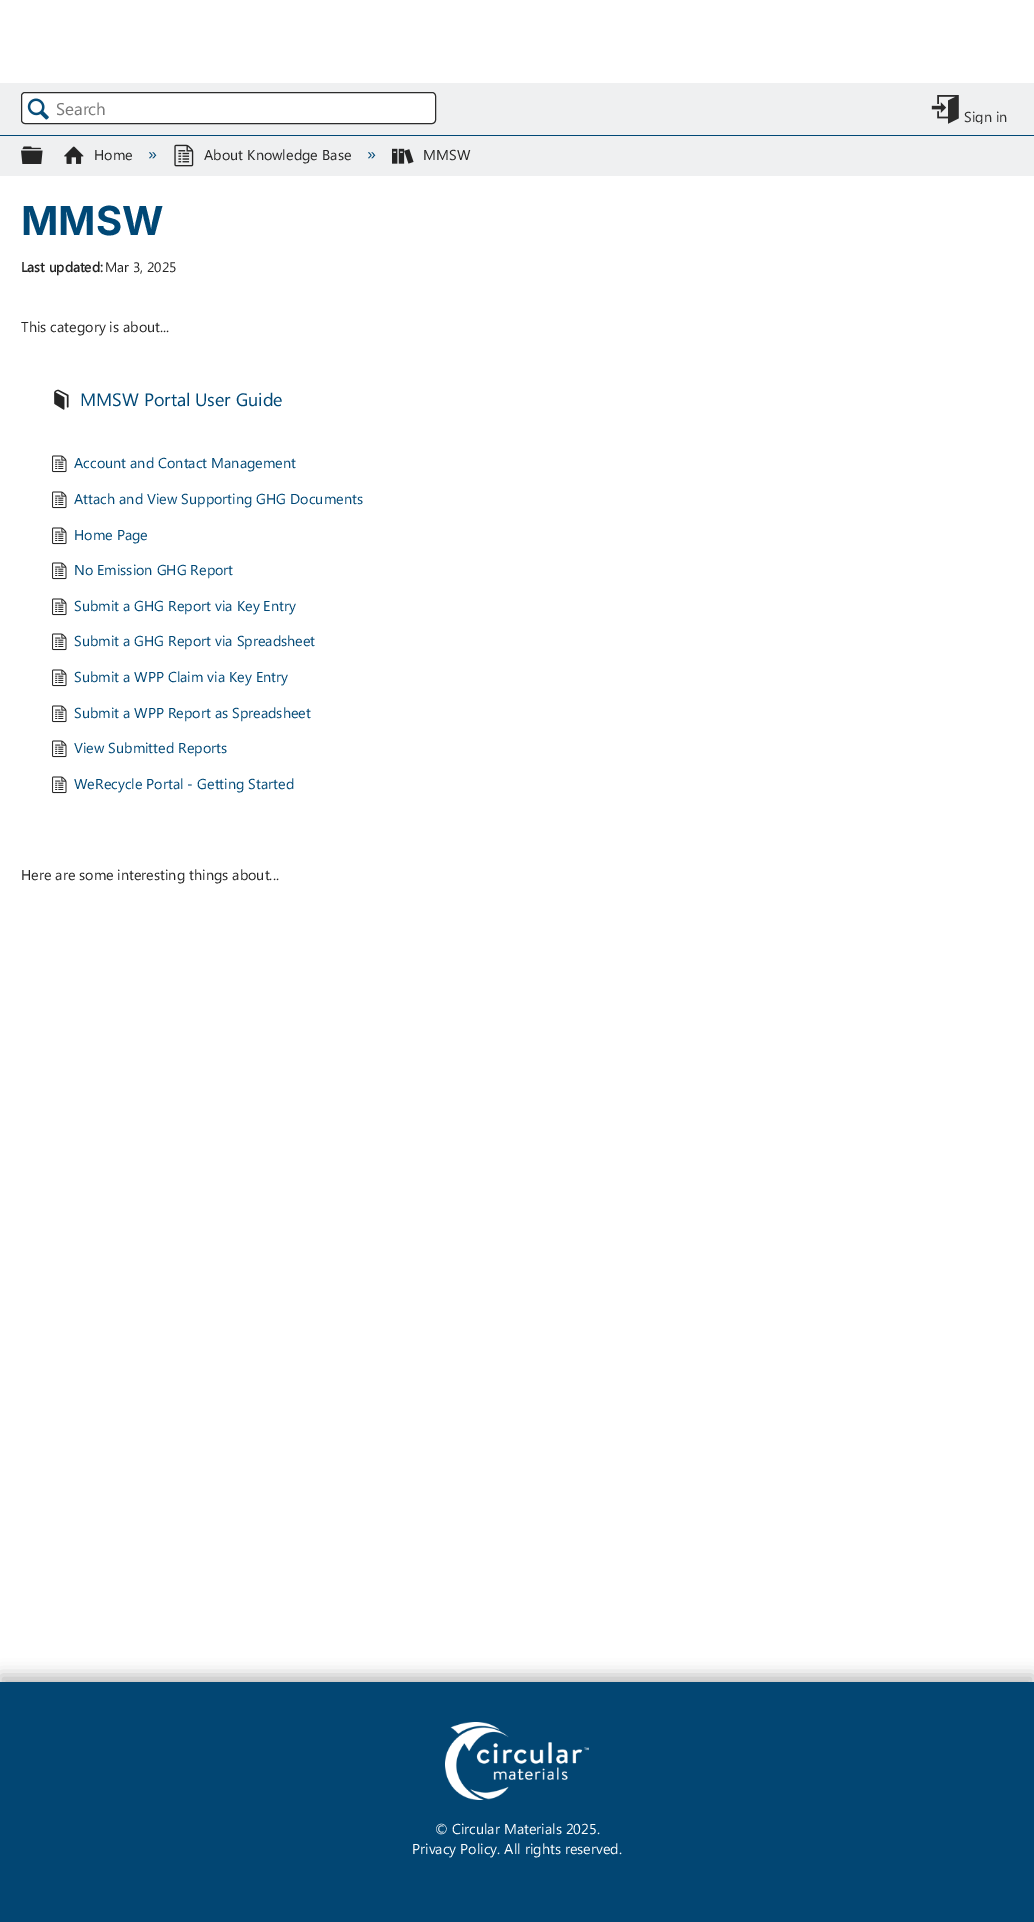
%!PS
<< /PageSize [1034 1922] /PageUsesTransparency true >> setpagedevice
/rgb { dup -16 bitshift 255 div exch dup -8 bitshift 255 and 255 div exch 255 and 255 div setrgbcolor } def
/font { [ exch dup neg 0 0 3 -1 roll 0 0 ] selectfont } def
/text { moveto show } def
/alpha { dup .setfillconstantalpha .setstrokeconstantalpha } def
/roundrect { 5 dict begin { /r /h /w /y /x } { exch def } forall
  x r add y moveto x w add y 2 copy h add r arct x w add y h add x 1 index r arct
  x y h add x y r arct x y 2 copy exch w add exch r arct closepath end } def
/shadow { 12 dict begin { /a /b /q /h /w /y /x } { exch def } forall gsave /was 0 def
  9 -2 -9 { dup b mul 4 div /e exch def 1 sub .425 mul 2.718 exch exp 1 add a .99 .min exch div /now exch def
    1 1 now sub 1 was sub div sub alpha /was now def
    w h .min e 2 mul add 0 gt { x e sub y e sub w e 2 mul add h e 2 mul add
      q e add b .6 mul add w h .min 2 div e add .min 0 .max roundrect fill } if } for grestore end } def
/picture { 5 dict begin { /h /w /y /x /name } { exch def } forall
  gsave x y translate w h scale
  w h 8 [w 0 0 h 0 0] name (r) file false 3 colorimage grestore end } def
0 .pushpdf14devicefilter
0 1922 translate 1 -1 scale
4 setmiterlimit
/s1 { /SegoeUI-Regular 17 font 16#797979 rgb } def
/s2 { /SegoeUI-Regular 14.4 font 16#2C2C2C rgb } def
/s3 { /SegoeUI-Regular 14.4 font 16#252525 rgb } def
/s4 { /SegoeUI-Regular 18 font 16#004876 rgb } def
/s5 { /Inter-Bold 40 font 16#004876 rgb } def
/s6 { /SegoeUI-Bold 13.75 font 16#252525 rgb } def
/s7 { /SegoeUI-Regular 13.75 font 16#252525 rgb } def
/s8 { /SegoeUI-Regular 14.4 font 16#004876 rgb } def
/s9 { /SegoeUI-Regular 14.4 font 16#FFFFFF rgb } def
16#FFFFFF rgb
0 0 1034 1922 rectfill
16#EFF0F1 rgb
0 83 1034 52 rectfill
16#FFFFFF rgb
21.5 92.5 414 31 3.5 roundrect gsave fill grestore
16#2C2C2C rgb
stroke
(pic1.raw) 27 98 22 22 picture
s1
(Search) 56 115 text
(pic2.raw) 931 95 28 29 picture
gsave
930 94 83 30 rectclip
s2
(Sign in) 964 122 text
grestore
16#EFF0F1 rgb
0 136 1034 40 rectfill
16#004876 rgb
0 135 1034 1 rectfill
(pic3.raw) 21 146 22 18 picture
(pic4.raw) 64 146 20 18 picture
s3
(Home) 94 160 text
s4
(») 148 160 text
(pic5.raw) 174 144 20 23 picture
s3
(About Knowledge Base) 204 160 text
s4
(») 367 160 text
(pic6.raw) 392 148 22 16 picture
s3
(MMSW) 423 160 text
s5
(MMSW) 21 235 text
s6
(Last updated:) 21 272 text
s7
(Mar 3, 2025) 105 272 text
s3
(This category is about...) 21 332 text
(pic7.raw) 54 389 15 21 picture
s4
(MMSW Portal User Guide) 80 406 text
(pic8.raw) 52 455 15 18 picture
s8
(Account and Contact Management) 74 468 text
(pic8.raw) 52 491 15 18 picture
(Attach and View Supporting GHG Documents) 74 504 text
(pic8.raw) 52 527 15 18 picture
(Home Page) 74 540 text
(pic8.raw) 52 562 15 18 picture
(No Emission GHG Report) 74 575 text
(pic8.raw) 52 598 15 18 picture
(Submit a GHG Report via Key Entry) 74 611 text
(pic8.raw) 52 633 15 18 picture
(Submit a GHG Report via Spreadsheet) 74 646 text
(pic8.raw) 52 669 15 18 picture
(Submit a WPP Claim via Key Entry) 74 682 text
(pic8.raw) 52 705 15 18 picture
(Submit a WPP Report as Spreadsheet) 74 718 text
(pic8.raw) 52 740 15 18 picture
(View Submitted Reports) 74 753 text
(pic8.raw) 52 776 15 18 picture
(WeRecycle Portal - Getting Started) 74 789 text
s3
(Here are some interesting things about...) 21 880 text
16#424244 rgb
0 1675 1034 240 0 7.5 0.34 shadow
16#024673 rgb
0 1682 1034 240 rectfill
(pic9.raw) 445 1722 144 78 picture
s9
(© Circular Materials 2025.) 435 1834 text
(Privacy Policy. All rights reserved.) 412 1854 text
.poppdf14devicefilter showpage
